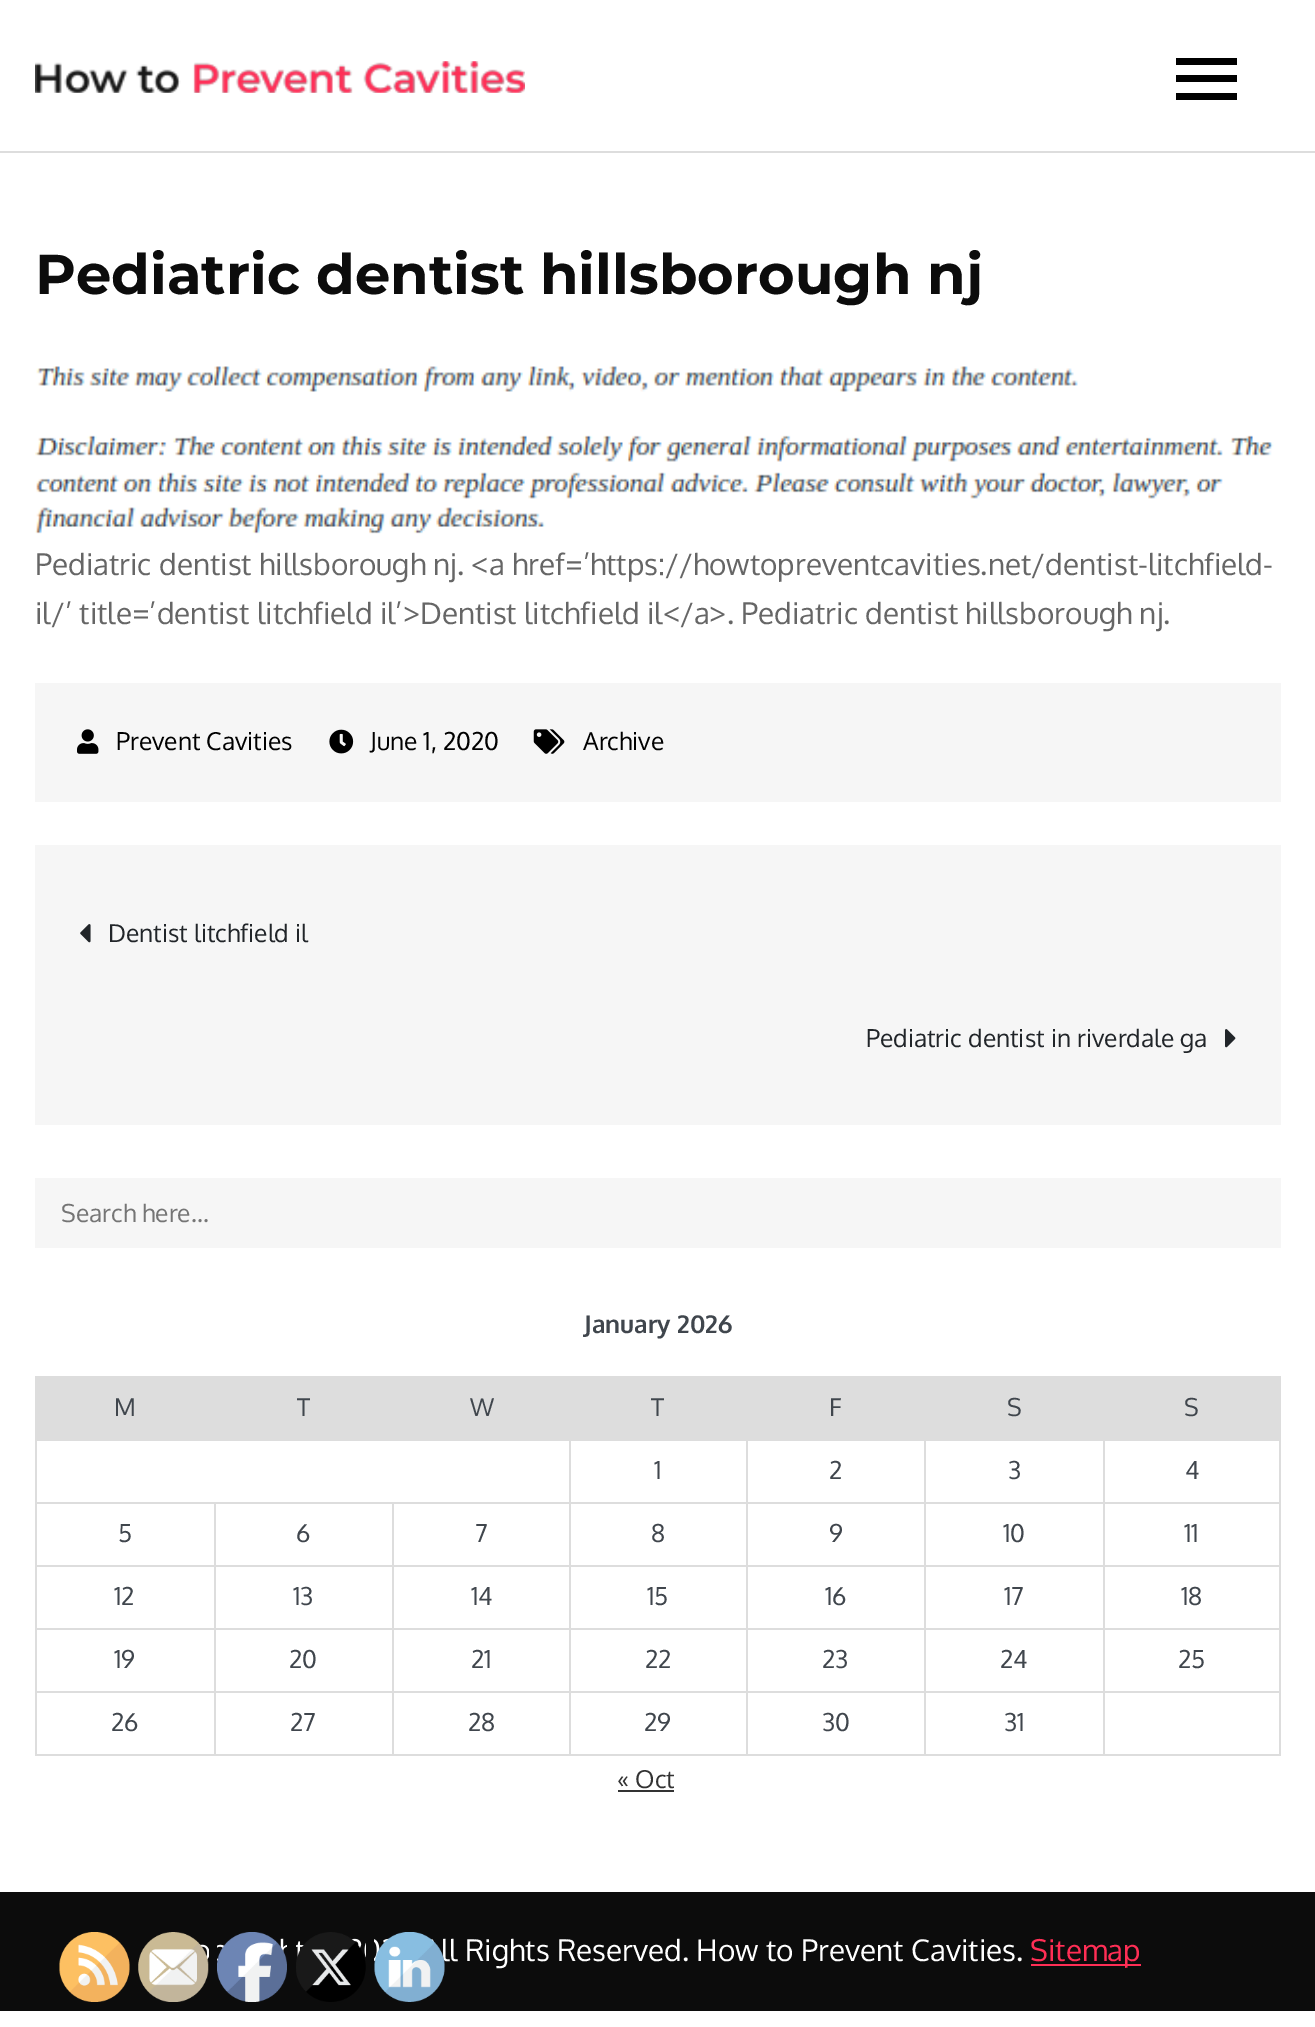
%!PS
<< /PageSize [1315 2027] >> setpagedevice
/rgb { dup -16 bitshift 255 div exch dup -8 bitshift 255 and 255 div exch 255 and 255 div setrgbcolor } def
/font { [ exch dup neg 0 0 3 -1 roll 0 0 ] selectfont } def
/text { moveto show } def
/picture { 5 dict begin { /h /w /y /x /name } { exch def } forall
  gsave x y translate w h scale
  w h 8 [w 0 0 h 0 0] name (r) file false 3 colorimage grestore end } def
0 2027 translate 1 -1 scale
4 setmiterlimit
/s1 { /Montserrat-Bold 56 font 16#0C0C0C rgb } def
/s2 { /Oxygen-Regular 29.75 font 16#666666 rgb } def
/s3 { /Oxygen-Regular 24.5 font 16#000000 rgb } def
/s4 { /Oxygen-Regular 24.5 font 16#212529 rgb } def
/s5 { /Oxygen-Regular 24.5 font 16#757575 rgb } def
/s6 { /Oxygen-Bold 24.5 font 16#40464D rgb } def
/s7 { /Oxygen-Regular 24.5 font 16#40464D rgb } def
/s8 { /Oxygen-Regular 24.5 font 16#333333 rgb } def
/s9 { /Oxygen-Regular 29.75 font 16#FFFFFF rgb } def
/s10 { /Oxygen-Regular 29.75 font 16#FF2E55 rgb } def
16#FFFFFF rgb
0 0 1315 2027 rectfill
16#DDDDDD rgb
0 151 1315 2 rectfill
(pic1.raw) 35 61 490 32 picture
16#000000 rgb
1176 75 61 7 rectfill
1176 58 61 7 rectfill
1176 93 61 7 rectfill
s1
(Pediatric dentist hillsborough nj) 35 294 text
(pic2.raw) 35 366 1239 168 picture
s2
(Pediatric dentist hillsborough nj. <a href=’https://howtopreventcavities.net/dentist-litchfield-) 35 575 text
(il/’ title=’dentist litchfield il’>Dentist litchfield il</a>. Pediatric dentist hillsborough nj.) 35 624 text
16#F6F6F6 rgb
35 683 1246 119 rectfill
(pic3.raw) 77 729 22 25 picture
s3
(Prevent Cavities) 116 750 text
(pic4.raw) 329 729 25 25 picture
(June 1, 2020) 370 750 text
(pic5.raw) 533 729 32 25 picture
(Archive) 583 750 text
16#F6F6F6 rgb
35 845 1246 280 rectfill
(pic6.raw) 80 924 11 19 picture
s4
(Dentist litchfield il) 108 942 text
(Pediatric dentist in riverdale ga) 866 1047 text
(pic7.raw) 1225 1029 11 19 picture
16#F6F6F6 rgb
35 1178 1246 70 rectfill
s5
(Search here...) 61 1222 text
s6
(January 2026) 584 1333 text
16#DDDDDD rgb
37 1378 1242 61 rectfill
35 1376 1246 2 rectfill
1103 1439 178 2 rectfill
1103 1502 178 2 rectfill
1103 1565 178 2 rectfill
1103 1628 178 2 rectfill
1103 1691 178 2 rectfill
1279 1691 2 64 rectfill
1103 1754 178 2 rectfill
1103 1691 2 64 rectfill
924 1691 180 2 rectfill
1103 1628 2 64 rectfill
924 1628 180 2 rectfill
1103 1565 2 64 rectfill
924 1565 180 2 rectfill
1103 1502 2 64 rectfill
924 1502 180 2 rectfill
1103 1439 2 64 rectfill
924 1439 180 2 rectfill
924 1754 180 2 rectfill
924 1691 2 64 rectfill
746 1691 180 2 rectfill
924 1628 2 64 rectfill
746 1628 180 2 rectfill
924 1565 2 64 rectfill
746 1565 180 2 rectfill
924 1502 2 64 rectfill
746 1502 180 2 rectfill
924 1439 2 64 rectfill
746 1439 180 2 rectfill
746 1754 180 2 rectfill
746 1691 2 64 rectfill
569 1691 178 2 rectfill
746 1628 2 64 rectfill
569 1628 178 2 rectfill
746 1565 2 64 rectfill
569 1565 178 2 rectfill
746 1502 2 64 rectfill
569 1502 178 2 rectfill
746 1439 2 64 rectfill
569 1439 178 2 rectfill
569 1754 178 2 rectfill
569 1691 2 64 rectfill
392 1691 179 2 rectfill
569 1628 2 64 rectfill
392 1628 179 2 rectfill
569 1565 2 64 rectfill
392 1565 179 2 rectfill
569 1502 2 64 rectfill
392 1502 179 2 rectfill
569 1439 2 64 rectfill
35 1439 536 2 rectfill
392 1754 179 2 rectfill
392 1691 2 64 rectfill
214 1691 180 2 rectfill
392 1628 2 64 rectfill
214 1628 180 2 rectfill
392 1565 2 64 rectfill
214 1565 180 2 rectfill
392 1502 2 64 rectfill
214 1502 180 2 rectfill
214 1754 180 2 rectfill
214 1691 2 64 rectfill
35 1691 180 2 rectfill
214 1628 2 64 rectfill
35 1628 180 2 rectfill
214 1565 2 64 rectfill
35 1565 180 2 rectfill
214 1502 2 64 rectfill
35 1502 180 2 rectfill
35 1754 180 2 rectfill
35 1691 2 64 rectfill
35 1628 2 64 rectfill
35 1565 2 64 rectfill
35 1502 2 64 rectfill
35 1439 2 64 rectfill
35 1376 2 64 rectfill
s7
(M) 114 1416 text
(T) 297 1416 text
(W) 470 1416 text
(T) 651 1416 text
(F) 829 1416 text
(S) 1007 1416 text
16#DDDDDD rgb
1279 1628 2 64 rectfill
1279 1565 2 64 rectfill
1279 1502 2 64 rectfill
1279 1439 2 64 rectfill
1279 1376 2 64 rectfill
s7
(S) 1184 1416 text
(1) 654 1479 text
(2) 829 1479 text
(3) 1008 1479 text
(4) 1185 1479 text
(5) 118 1542 text
(6) 296 1542 text
(7) 475 1542 text
(8) 651 1542 text
(9) 829 1542 text
(10) 1003 1542 text
(11) 1184 1542 text
(12) 114 1605 text
(13) 293 1605 text
(14) 471 1605 text
(15) 647 1605 text
(16) 825 1605 text
(17) 1004 1605 text
(18) 1181 1605 text
(19) 114 1668 text
(20) 289 1668 text
(21) 471 1668 text
(22) 645 1668 text
(23) 822 1668 text
(24) 1000 1668 text
(25) 1178 1668 text
(26) 111 1731 text
(27) 290 1731 text
(28) 468 1731 text
(29) 644 1731 text
(30) 822 1731 text
(31) 1004 1731 text
s8
(« Oct) 617 1788 text
618 1790 56 2 rectfill
16#0C0C0C rgb
0 1892 1315 119 rectfill
(pic8.raw) 59 1932 71 70 picture
(pic9.raw) 138 1932 71 70 picture
(pic10.raw) 217 1932 70 70 picture
(pic11.raw) 296 1932 70 70 picture
s9
(ll Rights Reserved. How to Prevent Cavities.) 441 1961 text
(pic12.raw) 374 1932 71 70 picture
16#FF2E55 rgb
1031 1964 110 2 rectfill
(Sitemap) 1030 1961 text
showpage
